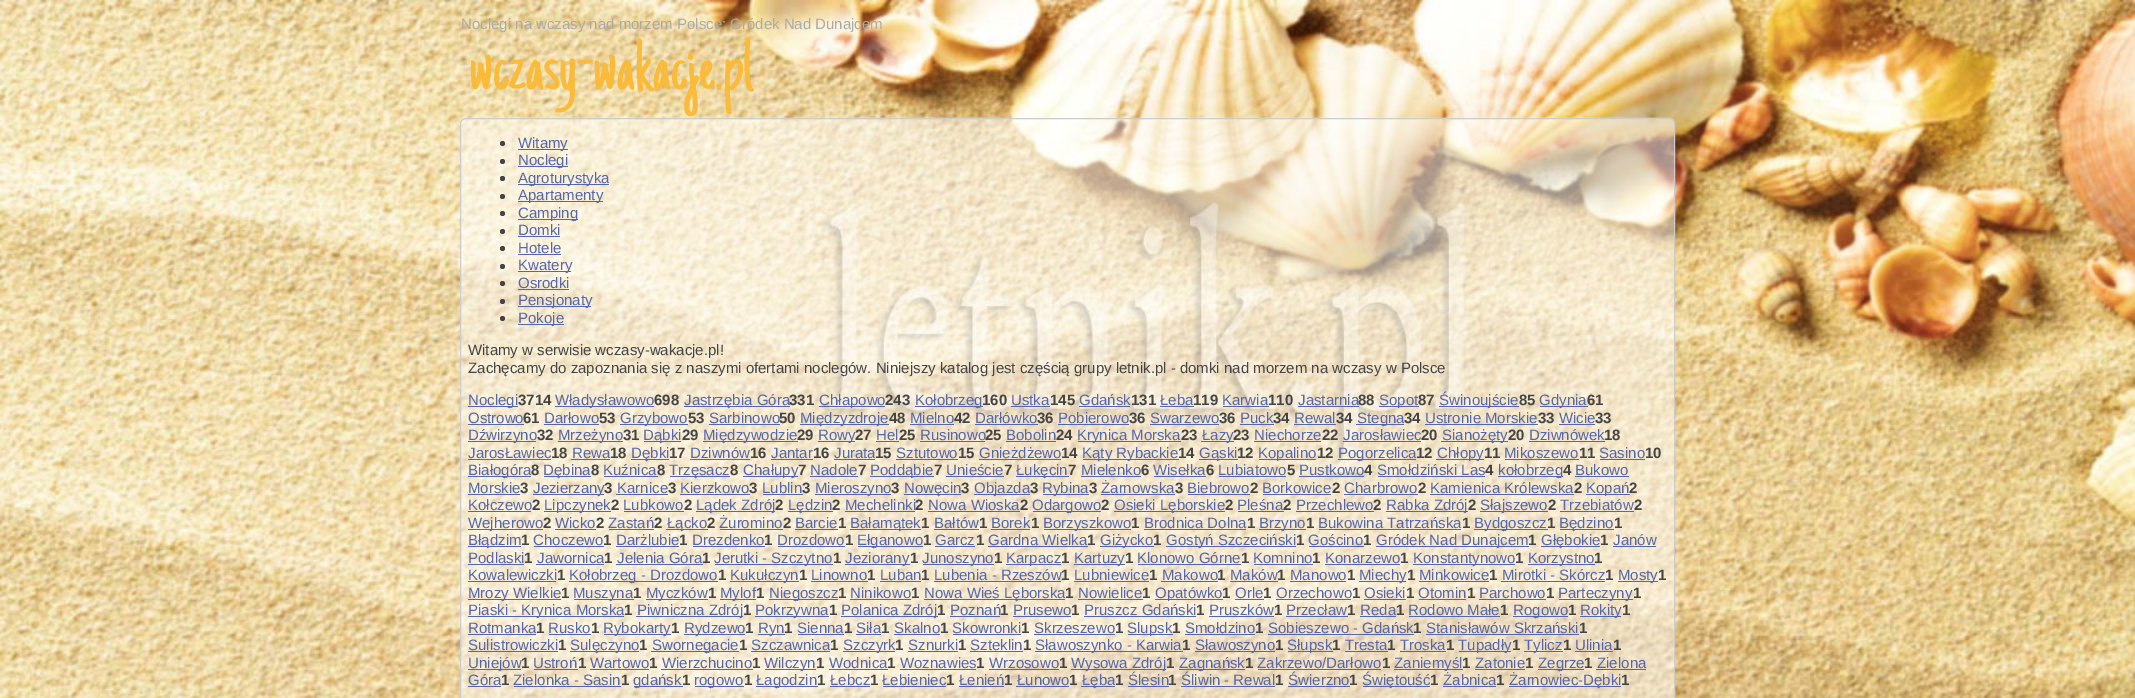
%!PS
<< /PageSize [2135 698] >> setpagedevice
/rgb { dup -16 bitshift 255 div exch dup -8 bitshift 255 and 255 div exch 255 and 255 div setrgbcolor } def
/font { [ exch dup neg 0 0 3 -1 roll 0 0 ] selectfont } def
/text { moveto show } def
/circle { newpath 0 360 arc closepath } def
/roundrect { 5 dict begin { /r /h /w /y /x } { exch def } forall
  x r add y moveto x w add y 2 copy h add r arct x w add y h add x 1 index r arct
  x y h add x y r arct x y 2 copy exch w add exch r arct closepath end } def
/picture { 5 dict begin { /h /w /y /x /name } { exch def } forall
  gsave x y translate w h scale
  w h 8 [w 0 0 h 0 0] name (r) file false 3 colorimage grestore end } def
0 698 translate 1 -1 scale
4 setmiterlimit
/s1 { /LiberationSans-Regular 15 font 16#AAAAAA rgb } def
/s2 { /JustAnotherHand-Regular 75 font 16#F9BB39 rgb } def
/s3 { /LiberationSans-Regular 15 font 16#5566AA rgb } def
/s4 { /LiberationSans-Regular 15 font 16#444444 rgb } def
/s5 { /LiberationSans-Bold 15 font 16#444444 rgb } def
16#FFFFFF rgb
0 0 2135 698 rectfill
(pic1.raw) 0 0 2135 698 picture
s1
(Noclegi na wczasy nad morzem Polsce: Gródek Nad Dunajcem) 461 29 text
s2
(wczasy-wakacje.pl) 469 89 text
(pic2.raw) 460 117 1215 581 picture
16#CCCCCC rgb
460.5 118.5 1214 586 5.5 roundrect stroke
16#444444 rgb
502.5 143.5 2.5 circle fill
16#5566AA rgb
518 149 50 1 rectfill
s3
(Witamy) 518 148 text
16#444444 rgb
502.5 161.5 2.5 circle fill
16#5566AA rgb
518 166 50 1 rectfill
(Noclegi) 518 165 text
16#444444 rgb
502.5 178.5 2.5 circle fill
16#5566AA rgb
518 184 91 1 rectfill
(Agroturystyka) 518 183 text
16#444444 rgb
502.5 196.5 2.5 circle fill
16#5566AA rgb
518 201 85 1 rectfill
(Apartamenty) 518 200 text
16#444444 rgb
502.5 213.5 2.5 circle fill
16#5566AA rgb
518 219 60 1 rectfill
(Camping) 518 218 text
16#444444 rgb
502.5 231.5 2.5 circle fill
s3
(Domki) 518 235 text
518 236 42 1 rectfill
16#444444 rgb
502.5 248.5 2.5 circle fill
s3
(Hotele) 518 253 text
518 254 43 1 rectfill
16#444444 rgb
502.5 266.5 2.5 circle fill
16#5566AA rgb
518 271 53 1 rectfill
(Kwatery) 518 270 text
16#444444 rgb
502.5 283.5 2.5 circle fill
s3
(Osrodki) 518 288 text
518 289 51 1 rectfill
16#444444 rgb
502.5 301.5 2.5 circle fill
16#5566AA rgb
518 306 73 1 rectfill
(Pensjonaty) 518 305 text
16#444444 rgb
502.5 318.5 2.5 circle fill
16#5566AA rgb
518 324 46 1 rectfill
(Pokoje) 518 323 text
s4
(Witamy w serwisie wczasy-wakacje.pl!) 468 355 text
(Zachęcamy do zapoznania się z naszymi ofertami noclegów. Niniejszy katalog jest częścią grupy letnik.pl - domki nad morzem na wczasy w Polsce) 468 373 text
16#5566AA rgb
468 406 50 1 rectfill
(Noclegi) 468 405 text
s5
(3714) 518 405 text
16#5566AA rgb
555 406 99 1 rectfill
s3
(Władysławowo) 555 405 text
s5
(698) 654 405 text
16#5566AA rgb
684 406 106 1 rectfill
s3
(Jastrzębia Góra) 684 405 text
s5
(331) 789 405 text
16#5566AA rgb
819 406 66 1 rectfill
s3
(Chłapowo) 819 405 text
s5
(243) 885 405 text
16#5566AA rgb
915 406 68 1 rectfill
s3
(Kołobrzeg) 915 405 text
s5
(160) 982 405 text
s3
(Ustka) 1011 405 text
1011 406 39 1 rectfill
s5
(145) 1050 405 text
s3
(Gdańsk) 1079 405 text
1079 406 51 1 rectfill
s5
(131) 1131 405 text
s3
(Łeba) 1160 405 text
1160 406 34 1 rectfill
s5
(119) 1193 405 text
s3
(Karwia) 1222 405 text
1223 406 46 1 rectfill
s5
(110) 1268 405 text
s3
(Jastarnia) 1298 405 text
1298 406 61 1 rectfill
s5
(88) 1358 405 text
16#5566AA rgb
1379 406 40 1 rectfill
s3
(Sopot) 1379 405 text
s5
(87) 1418 405 text
16#5566AA rgb
1439 406 80 1 rectfill
s3
(Świnoujście) 1439 405 text
s5
(85) 1519 405 text
16#5566AA rgb
1540 406 48 1 rectfill
s3
(Gdynia) 1539 405 text
s5
(61) 1587 405 text
s3
(Ostrowo) 468 423 text
468 424 56 1 rectfill
s5
(61) 523 423 text
s3
(Darłowo) 544 423 text
544 424 55 1 rectfill
s5
(53) 599 423 text
16#5566AA rgb
620 424 68 1 rectfill
s3
(Grzybowo) 620 423 text
s5
(53) 688 423 text
s3
(Sarbinowo) 709 423 text
709 424 71 1 rectfill
s5
(50) 779 423 text
16#5566AA rgb
800 424 89 1 rectfill
s3
(Międzyzdroje) 800 423 text
s5
(48) 889 423 text
s3
(Mielno) 910 423 text
910 424 44 1 rectfill
s5
(42) 954 423 text
s3
(Darłówko) 975 423 text
975 424 63 1 rectfill
s5
(36) 1037 423 text
s3
(Pobierowo) 1058 423 text
1058 424 71 1 rectfill
s5
(36) 1129 423 text
s3
(Swarzewo) 1150 423 text
1150 424 69 1 rectfill
s5
(36) 1219 423 text
s3
(Puck) 1240 423 text
1240 424 34 1 rectfill
s5
(34) 1273 423 text
s3
(Rewal) 1294 423 text
1294 424 42 1 rectfill
s5
(34) 1336 423 text
16#5566AA rgb
1356 424 48 1 rectfill
s3
(Stegna) 1357 423 text
s5
(34) 1404 423 text
s3
(Ustronie Morskie) 1425 423 text
1425 424 113 1 rectfill
s5
(33) 1538 423 text
s3
(Wicie) 1559 423 text
1559 424 36 1 rectfill
s5
(33) 1595 423 text
16#5566AA rgb
468 441 68 1 rectfill
s3
(Dźwirzyno) 468 440 text
s5
(32) 537 440 text
16#5566AA rgb
558 441 65 1 rectfill
s3
(Mrzeżyno) 558 440 text
s5
(31) 623 440 text
16#5566AA rgb
644 441 37 1 rectfill
s3
(Dąbki) 643 440 text
s5
(29) 682 440 text
16#5566AA rgb
703 441 95 1 rectfill
s3
(Międzywodzie) 703 440 text
s5
(29) 797 440 text
16#5566AA rgb
818 441 37 1 rectfill
s3
(Rowy) 818 440 text
s5
(27) 855 440 text
s3
(Hel) 876 440 text
876 441 23 1 rectfill
s5
(25) 899 440 text
s3
(Rusinowo) 920 440 text
920 441 65 1 rectfill
s5
(25) 985 440 text
s3
(Bobolin) 1006 440 text
1006 441 50 1 rectfill
s5
(24) 1056 440 text
16#5566AA rgb
1078 441 103 1 rectfill
s3
(Krynica Morska) 1077 440 text
s5
(23) 1181 440 text
16#5566AA rgb
1201 441 33 1 rectfill
s3
(Łazy) 1202 440 text
s5
(23) 1233 440 text
s3
(Niechorze) 1254 440 text
1254 441 67 1 rectfill
s5
(22) 1322 440 text
s3
(Jarosławiec) 1343 440 text
1343 441 78 1 rectfill
s5
(20) 1421 440 text
16#5566AA rgb
1441 441 67 1 rectfill
s3
(Sianożęty) 1442 440 text
s5
(20) 1508 440 text
s3
(Dziwnówek) 1529 440 text
1529 441 76 1 rectfill
s5
(18) 1604 440 text
s3
(JarosŁawiec) 468 458 text
468 459 83 1 rectfill
s5
(18) 551 458 text
s3
(Rewa) 572 458 text
571 459 39 1 rectfill
s5
(18) 610 458 text
16#5566AA rgb
631 459 38 1 rectfill
s3
(Dębki) 631 458 text
s5
(17) 669 458 text
s3
(Dziwnów) 690 458 text
690 459 60 1 rectfill
s5
(16) 750 458 text
s3
(Jantar) 771 458 text
771 459 42 1 rectfill
s5
(16) 813 458 text
s3
(Jurata) 834 458 text
834 459 41 1 rectfill
s5
(15) 875 458 text
s3
(Sztutowo) 896 458 text
896 459 62 1 rectfill
s5
(15) 958 458 text
s3
(Gnieżdżewo) 979 458 text
979 459 82 1 rectfill
s5
(14) 1061 458 text
16#5566AA rgb
1083 459 96 1 rectfill
s3
(Kąty Rybackie) 1082 458 text
s5
(14) 1178 458 text
16#5566AA rgb
1199 459 39 1 rectfill
s3
(Gąski) 1199 458 text
s5
(12) 1237 458 text
16#5566AA rgb
1259 459 57 1 rectfill
s3
(Kopalino) 1258 458 text
s5
(12) 1317 458 text
16#5566AA rgb
1338 459 78 1 rectfill
s3
(Pogorzelica) 1338 458 text
s5
(12) 1416 458 text
16#5566AA rgb
1436 459 48 1 rectfill
s3
(Chłopy) 1437 458 text
s5
(11) 1484 458 text
s3
(Mikoszewo) 1504 458 text
1505 459 74 1 rectfill
s5
(11) 1579 458 text
s3
(Sasino) 1599 458 text
1600 459 45 1 rectfill
s5
(10) 1645 458 text
16#5566AA rgb
468 476 63 1 rectfill
s3
(Białogóra) 468 475 text
s5
(8) 531 475 text
16#5566AA rgb
544 476 47 1 rectfill
s3
(Dębina) 543 475 text
s5
(8) 591 475 text
s3
(Kuźnica) 603 475 text
604 476 54 1 rectfill
s5
(8) 657 475 text
16#5566AA rgb
670 476 60 1 rectfill
s3
(Trzęsacz) 669 475 text
s5
(8) 730 475 text
16#5566AA rgb
743 476 55 1 rectfill
s3
(Chałupy) 743 475 text
s5
(7) 798 475 text
s3
(Nadole) 810 475 text
810 476 48 1 rectfill
s5
(7) 858 475 text
16#5566AA rgb
870 476 64 1 rectfill
s3
(Poddąbie) 870 475 text
s5
(7) 934 475 text
s3
(Unieście) 946 475 text
946 476 58 1 rectfill
s5
(7) 1004 475 text
16#5566AA rgb
1016 476 53 1 rectfill
s3
(Łukęcin) 1016 475 text
s5
(7) 1068 475 text
s3
(Mielenko) 1081 475 text
1081 476 60 1 rectfill
s5
(6) 1141 475 text
s3
(Wisełka) 1153 475 text
1154 476 52 1 rectfill
s5
(6) 1206 475 text
s3
(Lubiatowo) 1218 475 text
1219 476 67 1 rectfill
s5
(5) 1287 475 text
s3
(Pustkowo) 1299 475 text
1299 476 65 1 rectfill
s5
(4) 1364 475 text
s3
(Smołdziński Las) 1377 475 text
1378 476 107 1 rectfill
s5
(4) 1485 475 text
16#5566AA rgb
1498 476 65 1 rectfill
s3
(kołobrzeg) 1498 475 text
s5
(4) 1563 475 text
s3
(Bukowo) 1575 475 text
1575 476 54 1 rectfill
(Morskie) 468 493 text
468 494 52 1 rectfill
s5
(3) 520 493 text
16#5566AA rgb
533 494 71 1 rectfill
s3
(Jezierzany) 533 493 text
s5
(3) 604 493 text
s3
(Karnice) 617 493 text
616 494 52 1 rectfill
s5
(3) 668 493 text
s3
(Kierzkowo) 680 493 text
680 494 70 1 rectfill
s5
(3) 749 493 text
s3
(Lublin) 762 493 text
763 494 40 1 rectfill
s5
(3) 802 493 text
16#5566AA rgb
815 494 76 1 rectfill
s3
(Mieroszyno) 815 493 text
s5
(3) 891 493 text
16#5566AA rgb
904 494 57 1 rectfill
s3
(Nowęcin) 904 493 text
s5
(3) 961 493 text
16#5566AA rgb
974 494 56 1 rectfill
s3
(Objazda) 974 493 text
s5
(3) 1030 493 text
16#5566AA rgb
1043 494 46 1 rectfill
s3
(Rybina) 1042 493 text
s5
(3) 1089 493 text
s3
(Żarnowska) 1101 493 text
1101 494 74 1 rectfill
s5
(3) 1175 493 text
s3
(Biebrowo) 1187 493 text
1188 494 62 1 rectfill
s5
(2) 1250 493 text
s3
(Borkowice) 1262 493 text
1263 494 68 1 rectfill
s5
(2) 1332 493 text
s3
(Charbrowo) 1344 493 text
1344 494 74 1 rectfill
s5
(2) 1418 493 text
s3
(Kamienica Królewska) 1430 493 text
1430 494 144 1 rectfill
s5
(2) 1574 493 text
16#5566AA rgb
1586 494 44 1 rectfill
s3
(Kopań) 1586 493 text
s5
(2) 1629 493 text
s3
(Kołczewo) 468 510 text
468 511 63 1 rectfill
s5
(2) 532 510 text
16#5566AA rgb
544 511 67 1 rectfill
s3
(Lipczynek) 544 510 text
s5
(2) 611 510 text
s3
(Lubkowo) 623 510 text
624 511 60 1 rectfill
s5
(2) 684 510 text
16#5566AA rgb
696 511 79 1 rectfill
s3
(Lądek Zdrój) 696 510 text
s5
(2) 775 510 text
16#5566AA rgb
788 511 45 1 rectfill
s3
(Lędzin) 788 510 text
s5
(2) 832 510 text
s3
(Mechelinki) 845 510 text
845 511 70 1 rectfill
s5
(2) 915 510 text
s3
(Nowa Wioska) 928 510 text
928 511 92 1 rectfill
s5
(2) 1020 510 text
16#5566AA rgb
1033 511 68 1 rectfill
s3
(Odargowo) 1032 510 text
s5
(2) 1101 510 text
16#5566AA rgb
1114 511 111 1 rectfill
s3
(Osieki Lęborskie) 1114 510 text
s5
(2) 1225 510 text
s3
(Pleśna) 1237 510 text
1238 511 46 1 rectfill
s5
(2) 1283 510 text
s3
(Przechlewo) 1296 510 text
1296 511 78 1 rectfill
s5
(2) 1373 510 text
16#5566AA rgb
1386 511 82 1 rectfill
s3
(Rabka Zdrój) 1386 510 text
s5
(2) 1468 510 text
16#5566AA rgb
1480 511 68 1 rectfill
s3
(Słajszewo) 1480 510 text
s5
(2) 1548 510 text
s3
(Trzebiatów) 1560 510 text
1560 511 74 1 rectfill
s5
(2) 1634 510 text
16#5566AA rgb
468 529 75 1 rectfill
s3
(Wejherowo) 468 528 text
s5
(2) 543 528 text
s3
(Wicko) 555 528 text
555 529 41 1 rectfill
s5
(2) 596 528 text
s3
(Zastań) 608 528 text
609 529 45 1 rectfill
s5
(2) 654 528 text
16#5566AA rgb
666 529 42 1 rectfill
s3
(Łącko) 667 528 text
s5
(2) 707 528 text
s3
(Żuromino) 719 528 text
720 529 63 1 rectfill
s5
(2) 783 528 text
s3
(Barcie) 795 528 text
795 529 43 1 rectfill
s5
(1) 838 528 text
16#5566AA rgb
850 529 71 1 rectfill
s3
(Bałamątek) 850 528 text
s5
(1) 921 528 text
s3
(Bałtów) 934 528 text
934 529 45 1 rectfill
s5
(1) 979 528 text
s3
(Borek) 991 528 text
991 529 39 1 rectfill
s5
(1) 1031 528 text
16#5566AA rgb
1044 529 87 1 rectfill
s3
(Borzyszkowo) 1043 528 text
s5
(1) 1131 528 text
s3
(Brodnica Dolna) 1144 528 text
1144 529 102 1 rectfill
s5
(1) 1247 528 text
16#5566AA rgb
1259 529 47 1 rectfill
s3
(Brzyno) 1259 528 text
s5
(1) 1306 528 text
s3
(Bukowina Tatrzańska) 1318 528 text
1319 529 142 1 rectfill
s5
(1) 1462 528 text
16#5566AA rgb
1474 529 74 1 rectfill
s3
(Bydgoszcz) 1474 528 text
s5
(1) 1547 528 text
16#5566AA rgb
1560 529 54 1 rectfill
s3
(Będzino) 1559 528 text
s5
(1) 1614 528 text
16#5566AA rgb
468 546 53 1 rectfill
s3
(Błądzim) 468 545 text
s5
(1) 521 545 text
s3
(Choczewo) 533 545 text
534 546 70 1 rectfill
s5
(1) 603 545 text
s3
(Darżlubie) 616 545 text
616 546 63 1 rectfill
s5
(1) 679 545 text
s3
(Drezdenko) 692 545 text
693 546 72 1 rectfill
s5
(1) 764 545 text
s3
(Drozdowo) 777 545 text
778 546 67 1 rectfill
s5
(1) 845 545 text
16#5566AA rgb
858 546 65 1 rectfill
s3
(Ełganowo) 857 545 text
s5
(1) 923 545 text
s3
(Garcz) 935 545 text
935 546 40 1 rectfill
s5
(1) 976 545 text
s3
(Gardna Wielka) 988 545 text
988 546 100 1 rectfill
s5
(1) 1087 545 text
16#5566AA rgb
1100 546 54 1 rectfill
s3
(Giżycko) 1100 545 text
s5
(1) 1153 545 text
16#5566AA rgb
1166 546 130 1 rectfill
s3
(Gostyń Szczeciński) 1166 545 text
s5
(1) 1296 545 text
s3
(Gościno) 1308 545 text
1309 546 55 1 rectfill
s5
(1) 1363 545 text
16#5566AA rgb
1376 546 153 1 rectfill
s3
(Gródek Nad Dunajcem) 1376 545 text
s5
(1) 1528 545 text
16#5566AA rgb
1541 546 59 1 rectfill
s3
(Głębokie) 1541 545 text
s5
(1) 1600 545 text
s3
(Janów) 1613 545 text
1613 546 43 1 rectfill
(Podlaski) 468 563 text
468 564 56 1 rectfill
s5
(1) 524 563 text
s3
(Jawornica) 537 563 text
536 564 68 1 rectfill
s5
(1) 604 563 text
s3
(Jelenia Góra) 617 563 text
616 564 87 1 rectfill
s5
(1) 702 563 text
16#5566AA rgb
715 564 118 1 rectfill
s3
(Jerutki - Szczytno) 714 563 text
s5
(1) 833 563 text
16#5566AA rgb
845 564 65 1 rectfill
s3
(Jeziorany) 845 563 text
s5
(1) 910 563 text
16#5566AA rgb
923 564 71 1 rectfill
s3
(Junoszyno) 922 563 text
s5
(1) 994 563 text
16#5566AA rgb
1006 564 55 1 rectfill
s3
(Karpacz) 1006 563 text
s5
(1) 1061 563 text
16#5566AA rgb
1074 564 51 1 rectfill
s3
(Kartuzy) 1074 563 text
s5
(1) 1125 563 text
s3
(Klonowo Górne) 1137 563 text
1138 564 103 1 rectfill
s5
(1) 1241 563 text
s3
(Komnino) 1253 563 text
1254 564 59 1 rectfill
s5
(1) 1312 563 text
s3
(Konarzewo) 1325 563 text
1325 564 75 1 rectfill
s5
(1) 1400 563 text
16#5566AA rgb
1413 564 102 1 rectfill
s3
(Konstantynowo) 1413 563 text
s5
(1) 1515 563 text
16#5566AA rgb
1528 564 67 1 rectfill
s3
(Korzystno) 1528 563 text
s5
(1) 1594 563 text
s3
(Kowalewiczki) 468 580 text
468 581 88 1 rectfill
s5
(1) 557 580 text
16#5566AA rgb
569 581 149 1 rectfill
s3
(Kołobrzeg - Drozdowo) 569 580 text
s5
(1) 718 580 text
16#5566AA rgb
730 581 69 1 rectfill
s3
(Kukułczyn) 730 580 text
s5
(1) 799 580 text
s3
(Linowno) 811 580 text
811 581 57 1 rectfill
s5
(1) 867 580 text
s3
(Luban) 880 580 text
880 581 41 1 rectfill
s5
(1) 921 580 text
s3
(Lubenia - Rzeszów) 934 580 text
934 581 127 1 rectfill
s5
(1) 1061 580 text
s3
(Lubniewice) 1074 580 text
1074 581 75 1 rectfill
s5
(1) 1149 580 text
s3
(Makowo) 1162 580 text
1161 581 57 1 rectfill
s5
(1) 1217 580 text
s3
(Maków) 1230 580 text
1230 581 48 1 rectfill
s5
(1) 1277 580 text
s3
(Manowo) 1290 580 text
1290 581 56 1 rectfill
s5
(1) 1347 580 text
16#5566AA rgb
1359 581 47 1 rectfill
s3
(Miechy) 1359 580 text
s5
(1) 1407 580 text
s3
(Minkowice) 1419 580 text
1419 581 70 1 rectfill
s5
(1) 1489 580 text
s3
(Mirotki - Skórcz) 1502 580 text
1501 581 104 1 rectfill
s5
(1) 1605 580 text
16#5566AA rgb
1618 581 40 1 rectfill
s3
(Mosty) 1618 580 text
s5
(1) 1658 580 text
16#5566AA rgb
468 599 93 1 rectfill
s3
(Mrozy Wielkie) 468 598 text
s5
(1) 561 598 text
16#5566AA rgb
574 599 60 1 rectfill
s3
(Muszyna) 573 598 text
s5
(1) 633 598 text
16#5566AA rgb
646 599 62 1 rectfill
s3
(Myczków) 646 598 text
s5
(1) 708 598 text
16#5566AA rgb
720 599 36 1 rectfill
s3
(Mylof) 720 598 text
s5
(1) 756 598 text
16#5566AA rgb
769 599 69 1 rectfill
s3
(Niegoszcz) 769 598 text
s5
(1) 838 598 text
s3
(Ninikowo) 850 598 text
850 599 61 1 rectfill
s5
(1) 911 598 text
16#5566AA rgb
924 599 141 1 rectfill
s3
(Nowa Wieś Lęborska) 924 598 text
s5
(1) 1065 598 text
s3
(Nowielice) 1078 598 text
1078 599 65 1 rectfill
s5
(1) 1142 598 text
16#5566AA rgb
1155 599 68 1 rectfill
s3
(Opatówko) 1155 598 text
s5
(1) 1222 598 text
s3
(Orle) 1235 598 text
1235 599 29 1 rectfill
s5
(1) 1263 598 text
s3
(Orzechowo) 1276 598 text
1276 599 75 1 rectfill
s5
(1) 1352 598 text
s3
(Osieki) 1364 598 text
1364 599 42 1 rectfill
s5
(1) 1406 598 text
s3
(Otomin) 1418 598 text
1419 599 47 1 rectfill
s5
(1) 1467 598 text
s3
(Parchowo) 1479 598 text
1479 599 67 1 rectfill
s5
(1) 1546 598 text
16#5566AA rgb
1559 599 74 1 rectfill
s3
(Parteczyny) 1558 598 text
s5
(1) 1633 598 text
16#5566AA rgb
468 616 156 1 rectfill
s3
(Piaski - Krynica Morska) 468 615 text
s5
(1) 624 615 text
16#5566AA rgb
636 616 107 1 rectfill
s3
(Piwniczna Zdrój) 637 615 text
s5
(1) 743 615 text
16#5566AA rgb
755 616 74 1 rectfill
s3
(Pokrzywna) 755 615 text
s5
(1) 829 615 text
16#5566AA rgb
841 616 97 1 rectfill
s3
(Polanica Zdrój) 841 615 text
s5
(1) 937 615 text
s3
(Poznań) 950 615 text
950 616 50 1 rectfill
s5
(1) 1000 615 text
s3
(Prusewo) 1013 615 text
1013 616 58 1 rectfill
s5
(1) 1071 615 text
s3
(Pruszcz Gdański) 1084 615 text
1084 616 112 1 rectfill
s5
(1) 1196 615 text
s3
(Pruszków) 1209 615 text
1209 616 65 1 rectfill
s5
(1) 1274 615 text
s3
(Przecław) 1286 615 text
1286 616 62 1 rectfill
s5
(1) 1347 615 text
s3
(Reda) 1360 615 text
1360 616 36 1 rectfill
s5
(1) 1396 615 text
s3
(Rodowo Małe) 1408 615 text
1409 616 91 1 rectfill
s5
(1) 1500 615 text
16#5566AA rgb
1513 616 55 1 rectfill
s3
(Rogowo) 1513 615 text
s5
(1) 1568 615 text
16#5566AA rgb
1580 616 41 1 rectfill
s3
(Rokity) 1580 615 text
s5
(1) 1622 615 text
s3
(Rotmanka) 468 633 text
468 634 68 1 rectfill
s5
(1) 536 633 text
s3
(Rusko) 548 633 text
549 634 42 1 rectfill
s5
(1) 591 633 text
16#5566AA rgb
604 634 67 1 rectfill
s3
(Rybokarty) 603 633 text
s5
(1) 671 633 text
16#5566AA rgb
684 634 61 1 rectfill
s3
(Rydzewo) 684 633 text
s5
(1) 745 633 text
16#5566AA rgb
758 634 27 1 rectfill
s3
(Ryn) 758 633 text
s5
(1) 784 633 text
s3
(Sienna) 797 633 text
798 634 46 1 rectfill
s5
(1) 844 633 text
s3
(Siła) 856 633 text
856 634 25 1 rectfill
s5
(1) 881 633 text
s3
(Skalno) 894 633 text
894 634 46 1 rectfill
s5
(1) 940 633 text
s3
(Skowronki) 952 633 text
953 634 68 1 rectfill
s5
(1) 1021 633 text
s3
(Skrzeszewo) 1034 633 text
1034 634 81 1 rectfill
s5
(1) 1115 633 text
16#5566AA rgb
1128 634 45 1 rectfill
s3
(Slupsk) 1127 633 text
s5
(1) 1172 633 text
s3
(Smołdzino) 1185 633 text
1185 634 70 1 rectfill
s5
(1) 1255 633 text
s3
(Sobieszewo - Gdańsk) 1268 633 text
1268 634 146 1 rectfill
s5
(1) 1413 633 text
s3
(Stanisławów Skrzański) 1426 633 text
1426 634 153 1 rectfill
s5
(1) 1579 633 text
s3
(Sulistrowiczki) 468 650 text
468 651 90 1 rectfill
s5
(1) 558 650 text
16#5566AA rgb
570 651 69 1 rectfill
s3
(Sulęczyno) 570 650 text
s5
(1) 639 650 text
16#5566AA rgb
651 651 88 1 rectfill
s3
(Swornegacie) 652 650 text
s5
(1) 739 650 text
s3
(Szczawnica) 751 650 text
751 651 79 1 rectfill
s5
(1) 830 650 text
16#5566AA rgb
843 651 52 1 rectfill
s3
(Szczyrk) 843 650 text
s5
(1) 895 650 text
s3
(Sznurki) 908 650 text
908 651 50 1 rectfill
s5
(1) 958 650 text
s3
(Szteklin) 970 650 text
970 651 53 1 rectfill
s5
(1) 1023 650 text
16#5566AA rgb
1035 651 148 1 rectfill
s3
(Sławoszynko - Karwia) 1035 650 text
s5
(1) 1182 650 text
16#5566AA rgb
1195 651 80 1 rectfill
s3
(Sławoszyno) 1195 650 text
s5
(1) 1275 650 text
16#5566AA rgb
1288 651 45 1 rectfill
s3
(Słupsk) 1287 650 text
s5
(1) 1332 650 text
s3
(Tresta) 1345 650 text
1345 651 43 1 rectfill
s5
(1) 1387 650 text
s3
(Troska) 1400 650 text
1400 651 46 1 rectfill
s5
(1) 1446 650 text
16#5566AA rgb
1459 651 52 1 rectfill
s3
(Tupadły) 1458 650 text
s5
(1) 1512 650 text
16#5566AA rgb
1524 651 39 1 rectfill
s3
(Tylicz) 1524 650 text
s5
(1) 1563 650 text
s3
(Ulinia) 1575 650 text
1575 651 38 1 rectfill
s5
(1) 1613 650 text
16#5566AA rgb
468 669 53 1 rectfill
s3
(Uniejów) 468 668 text
s5
(1) 521 668 text
s3
(Ustroń) 533 668 text
534 669 44 1 rectfill
s5
(1) 578 668 text
s3
(Wartowo) 590 668 text
590 669 59 1 rectfill
s5
(1) 649 668 text
s3
(Wierzchucino) 662 668 text
661 669 92 1 rectfill
s5
(1) 752 668 text
16#5566AA rgb
765 669 51 1 rectfill
s3
(Wilczyn) 764 668 text
s5
(1) 816 668 text
s3
(Wodnica) 829 668 text
829 669 59 1 rectfill
s5
(1) 887 668 text
s3
(Woznawies) 900 668 text
900 669 76 1 rectfill
s5
(1) 976 668 text
s3
(Wrzosowo) 989 668 text
989 669 70 1 rectfill
s5
(1) 1059 668 text
16#5566AA rgb
1071 669 95 1 rectfill
s3
(Wysowa Zdrój) 1071 668 text
s5
(1) 1166 668 text
16#5566AA rgb
1179 669 66 1 rectfill
s3
(Zagnańsk) 1179 668 text
s5
(1) 1245 668 text
s3
(Zakrzewo/Darłowo) 1257 668 text
1258 669 123 1 rectfill
s5
(1) 1382 668 text
16#5566AA rgb
1394 669 69 1 rectfill
s3
(Zaniemyśl) 1394 668 text
s5
(1) 1462 668 text
s3
(Zatonie) 1475 668 text
1475 669 50 1 rectfill
s5
(1) 1525 668 text
16#5566AA rgb
1538 669 46 1 rectfill
s3
(Zegrze) 1538 668 text
s5
(1) 1584 668 text
s3
(Zielona) 1597 668 text
1596 669 50 1 rectfill
(Góra) 468 685 text
468 686 33 1 rectfill
s5
(1) 501 685 text
s3
(Zielonka - Sasin) 513 685 text
514 686 107 1 rectfill
s5
(1) 621 685 text
16#5566AA rgb
634 686 49 1 rectfill
s3
(gdańsk) 633 685 text
s5
(1) 682 685 text
16#5566AA rgb
695 686 49 1 rectfill
s3
(rogowo) 694 685 text
s5
(1) 744 685 text
16#5566AA rgb
756 686 62 1 rectfill
s3
(Łagodzin) 756 685 text
s5
(1) 817 685 text
s3
(Łebcz) 830 685 text
830 686 40 1 rectfill
s5
(1) 870 685 text
s3
(Łebieniec) 882 685 text
883 686 63 1 rectfill
s5
(1) 946 685 text
s3
(Łenień) 959 685 text
959 686 45 1 rectfill
s5
(1) 1004 685 text
s3
(Łunowo) 1017 685 text
1016 686 53 1 rectfill
s5
(1) 1069 685 text
16#5566AA rgb
1081 686 34 1 rectfill
s3
(Łęba) 1082 685 text
s5
(1) 1115 685 text
s3
(Ślesin) 1128 685 text
1128 686 41 1 rectfill
s5
(1) 1168 685 text
s3
(Śliwin - Rewal) 1181 685 text
1181 686 94 1 rectfill
s5
(1) 1275 685 text
s3
(Świerzno) 1288 685 text
1288 686 62 1 rectfill
s5
(1) 1349 685 text
16#5566AA rgb
1363 686 67 1 rectfill
s3
(Świętouść) 1362 685 text
s5
(1) 1430 685 text
s3
(Żabnica) 1443 685 text
1443 686 53 1 rectfill
s5
(1) 1496 685 text
16#5566AA rgb
1509 686 112 1 rectfill
s3
(Żarnowiec-Dębki) 1509 685 text
s5
(1) 1621 685 text
showpage
